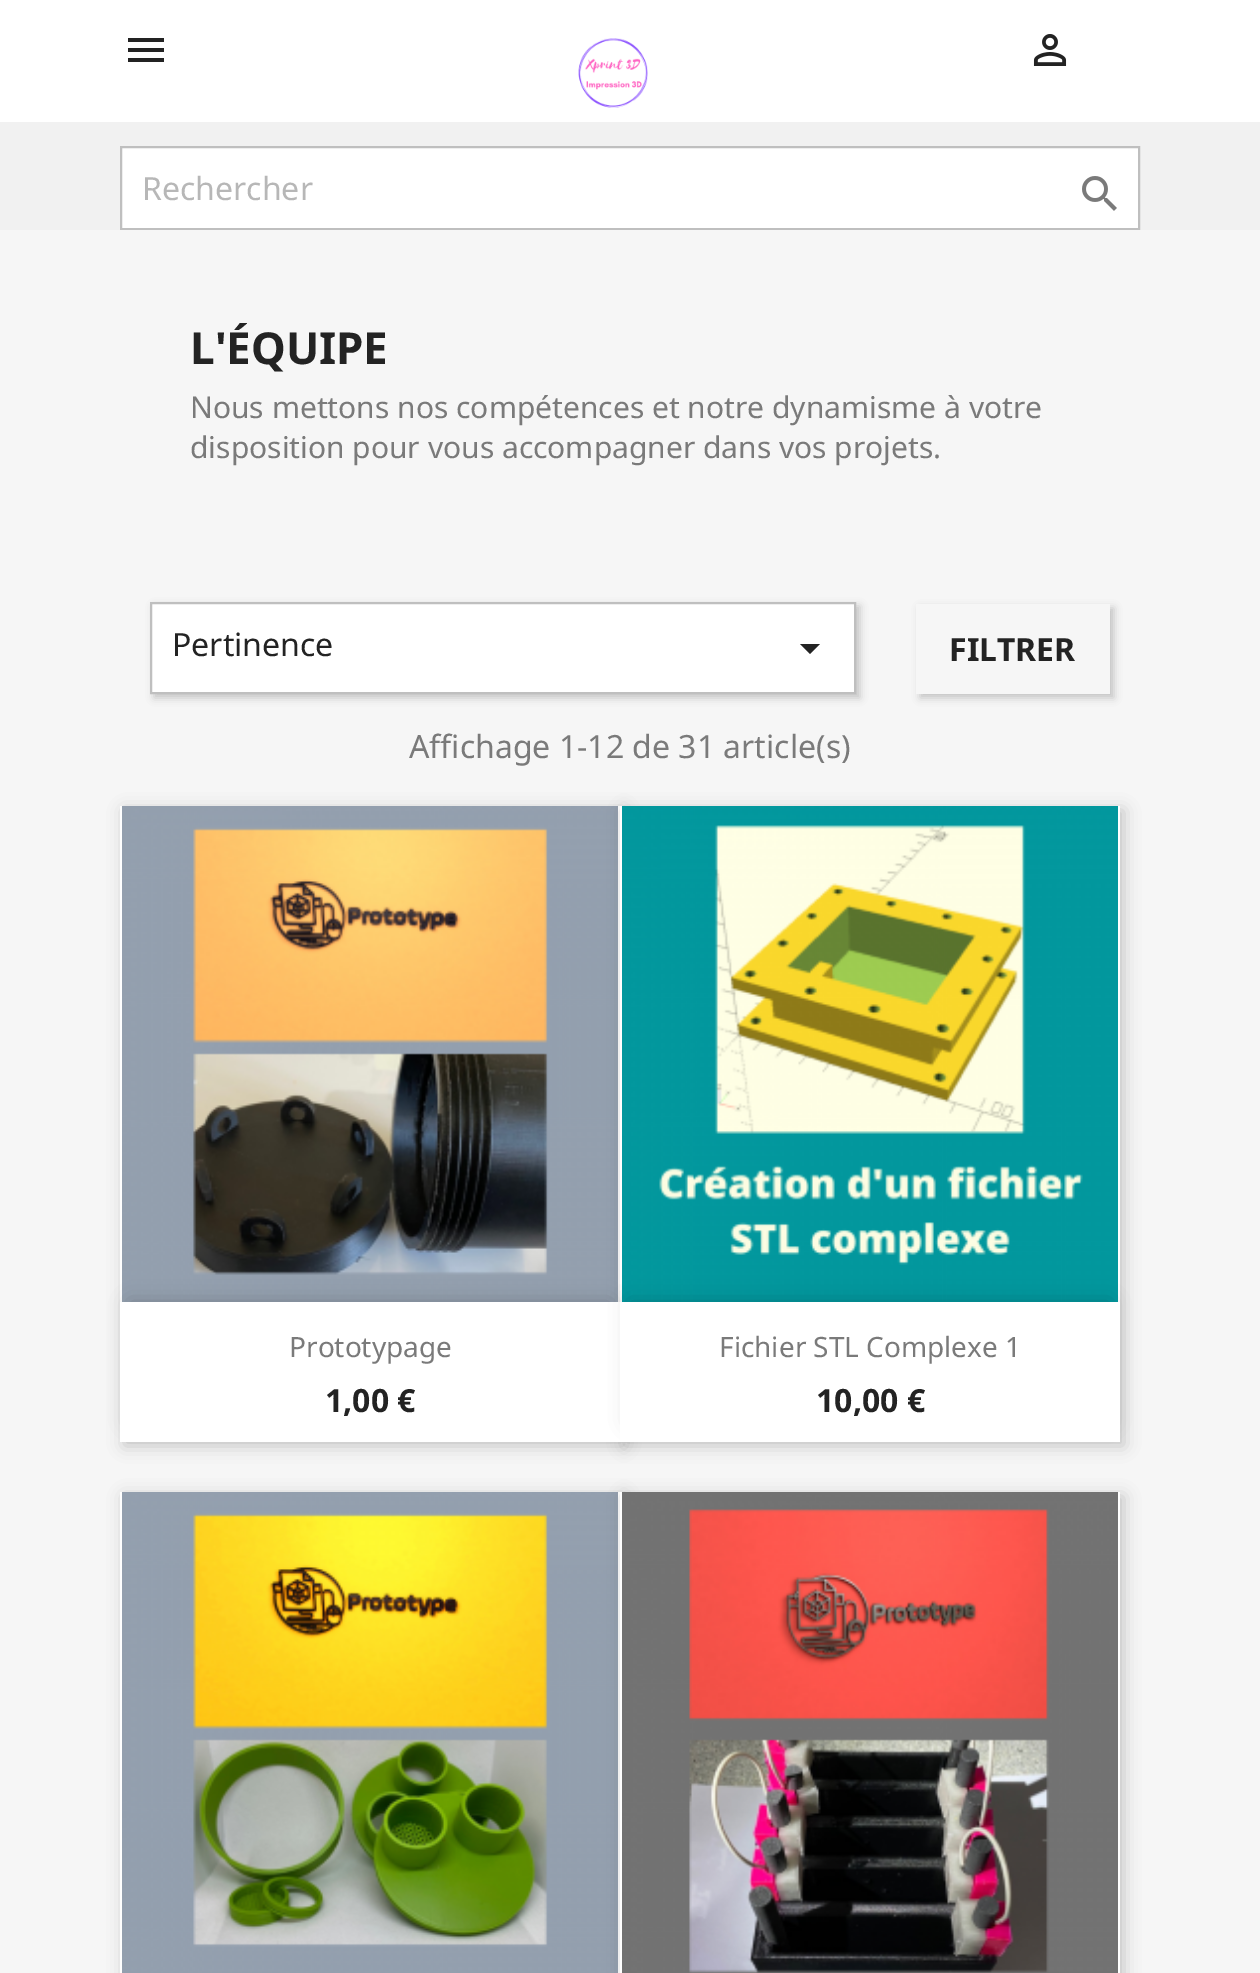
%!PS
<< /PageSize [1260 1973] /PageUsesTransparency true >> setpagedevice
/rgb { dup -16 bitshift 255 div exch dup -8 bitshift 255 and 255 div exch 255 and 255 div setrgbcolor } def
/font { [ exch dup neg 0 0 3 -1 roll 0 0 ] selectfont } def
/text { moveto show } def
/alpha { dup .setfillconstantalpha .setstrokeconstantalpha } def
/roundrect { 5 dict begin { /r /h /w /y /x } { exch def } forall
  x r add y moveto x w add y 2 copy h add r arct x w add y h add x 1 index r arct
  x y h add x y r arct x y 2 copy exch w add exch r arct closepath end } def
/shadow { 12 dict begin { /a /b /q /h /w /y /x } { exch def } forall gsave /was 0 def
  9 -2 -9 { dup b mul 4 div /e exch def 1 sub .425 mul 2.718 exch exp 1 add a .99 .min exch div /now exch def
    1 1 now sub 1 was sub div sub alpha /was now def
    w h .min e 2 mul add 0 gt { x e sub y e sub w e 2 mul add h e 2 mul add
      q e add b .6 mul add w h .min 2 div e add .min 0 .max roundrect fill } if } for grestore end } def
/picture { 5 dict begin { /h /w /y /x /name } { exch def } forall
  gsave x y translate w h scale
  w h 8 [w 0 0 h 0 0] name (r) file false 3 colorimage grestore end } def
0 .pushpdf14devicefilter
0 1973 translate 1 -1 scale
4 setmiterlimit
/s1 { /NotoSans-Regular 32 font 16#B7B7B7 rgb } def
/s2 { /NotoSans-Bold 44 font 16#232323 rgb } def
/s3 { /NotoSans-Regular 30 font 16#7A7A7A rgb } def
/s4 { /NotoSans-Regular 32 font 16#232323 rgb } def
/s5 { /NotoSans-Bold 32 font 16#232323 rgb } def
/s6 { /NotoSans-Regular 32 font 16#7A7A7A rgb } def
/s7 { /NotoSans-Regular 28 font 16#7A7A7A rgb } def
16#F1F1F1 rgb
0 0 1260 1973 rectfill
16#FFFFFF rgb
0 0 1260 122 rectfill
16#232323 rgb
128 38 moveto 164 38 lineto 164 42 lineto 128 42 lineto closepath 128 52 moveto 128 48 lineto 164 48 lineto 164 52 lineto closepath 128 62 moveto 128 58 lineto 164 58 lineto 164 62 lineto closepath fill
(pic1.raw) 578 38 70 70 picture
(pic2.raw) 1033 34 34 32 picture
16#FFFFFF rgb
121 147 moveto 1139 147 lineto 1139 229 lineto 121 229 lineto closepath gsave fill grestore
16#BFBFBF rgb
2 setlinewidth
stroke
s1
(Rechercher) 142 200 text
(pic3.raw) 1082 176 35 35 picture
16#F6F6F6 rgb
0 230 1260 1743 rectfill
s2
(L'ÉQUIPE) 190 364 text
s3
(Nous mettons nos compétences et notre dynamisme à votre) 190 418 text
(disposition pour vous accompagner dans vos projets.) 190 458 text
16#000000 rgb
154 606 706 92 0 4 0.2 shadow
16#FFFFFF rgb
151 603 moveto 855 603 lineto 855 693 lineto 151 693 lineto closepath gsave fill grestore
16#BFBFBF rgb
stroke
s4
(Pertinence) 172 656 text
800 644 moveto 820 644 lineto 810 654 lineto closepath fill
gsave
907 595 moveto 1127 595 lineto 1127 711 lineto 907 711 lineto closepath 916 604 moveto 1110 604 lineto 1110 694 lineto 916 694 lineto closepath eoclip newpath
16#000000 rgb
920 608 194 90 0 4 0.2 shadow
grestore
s5
(FILTRER) 949 661 text
s6
(Affichage 1-12 de 31 article\(s\)) 409 758 text
16#000000 rgb
124 810 500 636 0 8 0.2 shadow
16#FFFFFF rgb
120 806 500 496 rectfill
(pic4.raw) 122 806 496 496 picture
16#000000 rgb
624 810 500 636 0 8 0.2 shadow
16#FFFFFF rgb
620 806 500 496 rectfill
(pic5.raw) 622 806 496 496 picture
16#000000 rgb
130 1302 480 120 0 10 0.2 shadow
16#FFFFFF rgb
120 1302 500 140 rectfill
s7
(Prototypage) 289 1357 text
s5
(1,00 €) 325 1412 text
16#000000 rgb
630 1302 480 120 0 10 0.2 shadow
16#FFFFFF rgb
620 1302 500 140 rectfill
s7
(Fichier STL Complexe 1) 719 1357 text
s5
(10,00 €) 816 1412 text
16#000000 rgb
124 1496 500 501 0 8 0.2 shadow
16#FFFFFF rgb
120 1492 500 481 rectfill
(pic6.raw) 122 1492 496 481 picture
16#000000 rgb
624 1496 500 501 0 8 0.2 shadow
16#FFFFFF rgb
620 1492 500 481 rectfill
(pic7.raw) 622 1492 496 481 picture
.poppdf14devicefilter showpage
